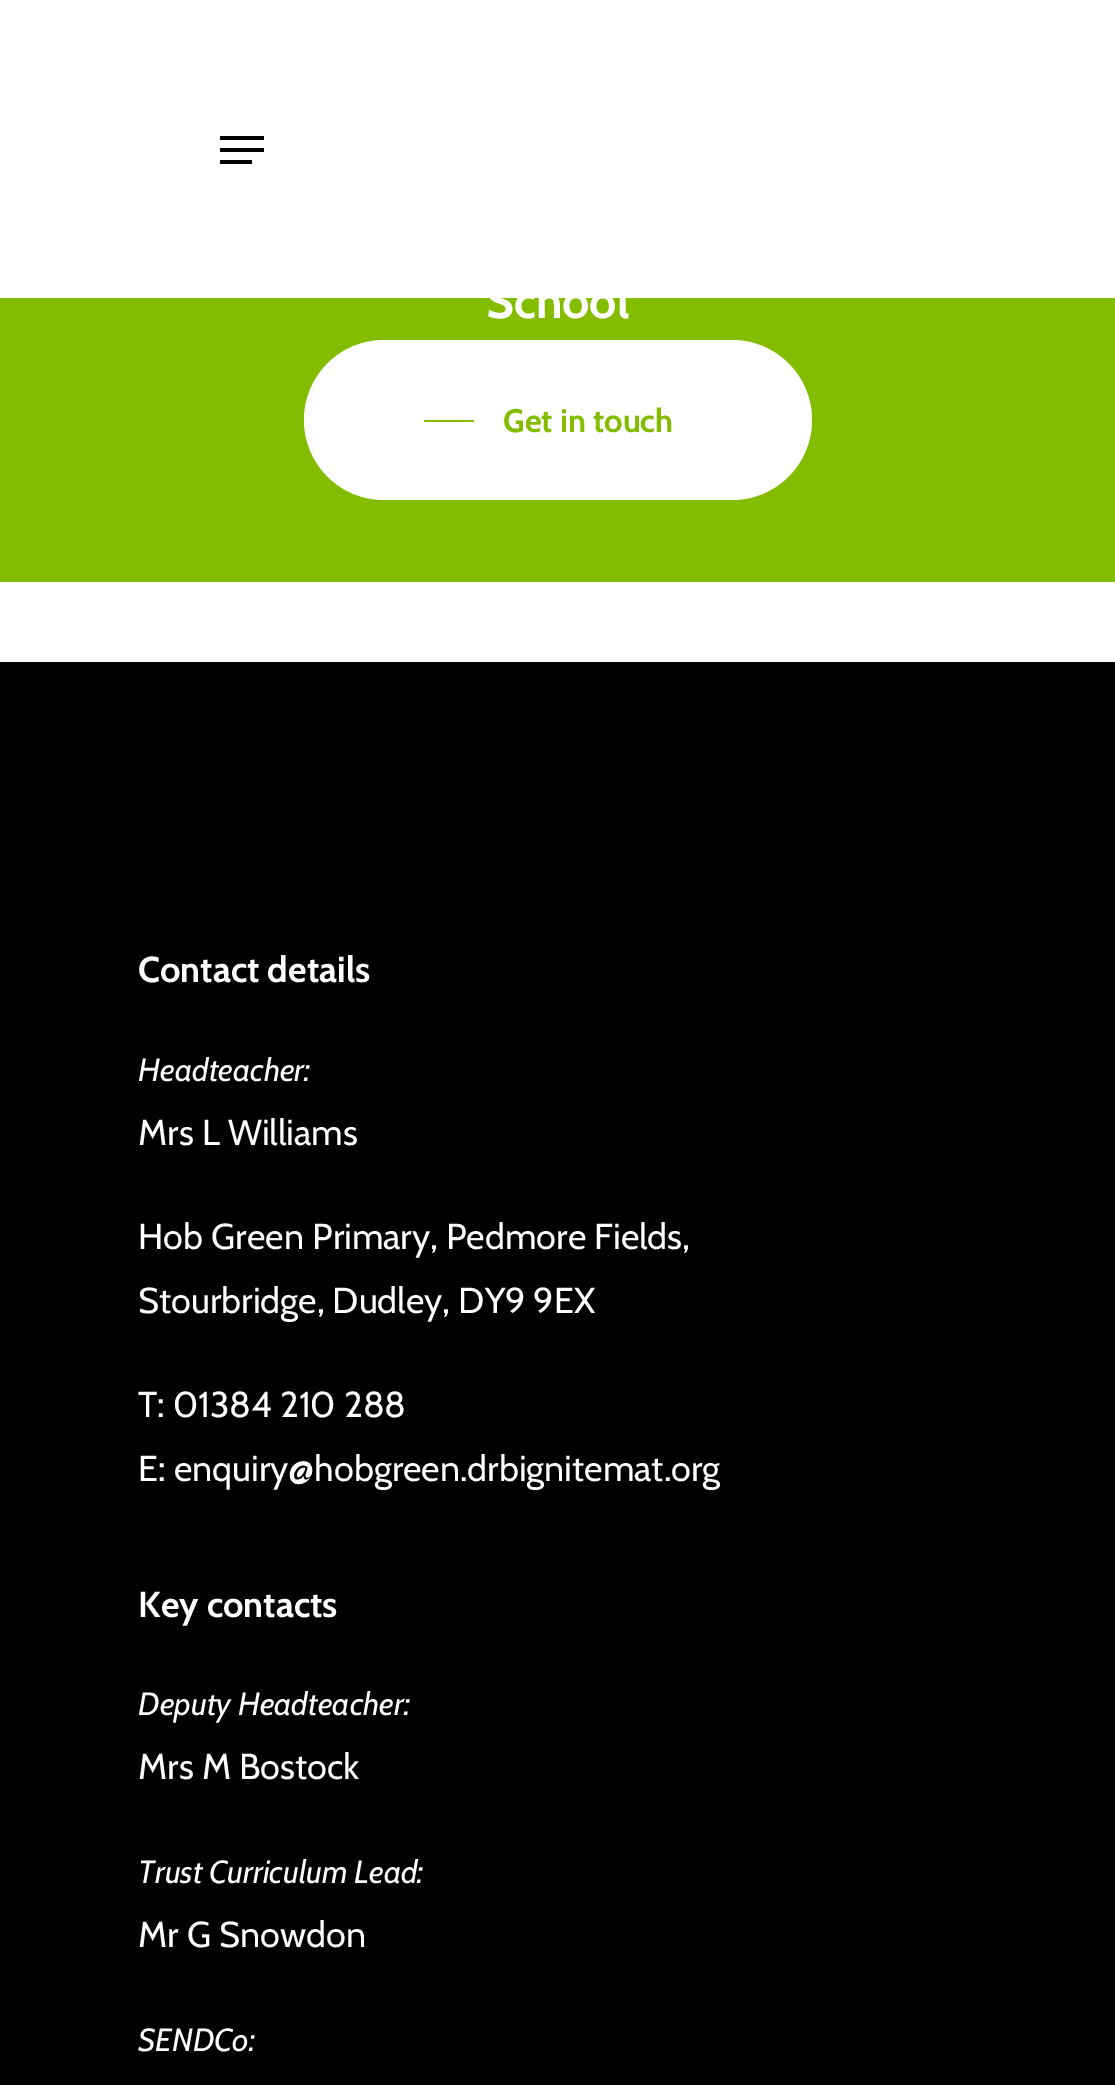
%!PS
<< /PageSize [1115 2085] >> setpagedevice
/rgb { dup -16 bitshift 255 div exch dup -8 bitshift 255 and 255 div exch 255 and 255 div setrgbcolor } def
/font { [ exch dup neg 0 0 3 -1 roll 0 0 ] selectfont } def
/text { moveto show } def
/roundrect { 5 dict begin { /r /h /w /y /x } { exch def } forall
  x r add y moveto x w add y 2 copy h add r arct x w add y h add x 1 index r arct
  x y h add x y r arct x y 2 copy exch w add exch r arct closepath end } def
0 2085 translate 1 -1 scale
4 setmiterlimit
/s1 { /Cabin-Bold 48 font 16#FFFFFF rgb } def
/s2 { /Cabin-Bold 32.5 font 16#84BD00 rgb } def
/s3 { /Cabin-Bold 36 font 16#FFFFFF rgb } def
/s4 { /Cabin-Italic 32 font 16#FFFFFF rgb } def
/s5 { /Cabin-Regular 36 font 16#FFFFFF rgb } def
16#FFFFFF rgb
0 0 1115 2085 rectfill
16#000000 rgb
220 136 44 4 rectfill
220 160 32 4 rectfill
220 148 44 4 rectfill
16#84BD00 rgb
0 298 1115 284 rectfill
s1
(School) 486 318 text
304 340 508 160 80 roundrect fill
16#84BD00 rgb
424 420 50 2 rectfill
s2
(Get in touch) 503 432 text
16#000000 rgb
0 662 1115 1423 rectfill
s3
(Contact details) 138 982 text
s4
(Headteacher:) 138 1081 text
s5
(Mrs L Williams) 138 1145 text
(Hob Green Primary, Pedmore Fields,) 138 1249 text
(Stourbridge, Dudley, DY9 9EX) 138 1313 text
(T: 01384 210 288) 138 1417 text
(E: enquiry@hobgreen.drbignitemat.org) 138 1481 text
s3
(Key contacts) 138 1617 text
s4
(Deputy Headteacher:) 138 1715 text
s5
(Mrs M Bostock) 138 1779 text
s4
(Trust Curriculum Lead:) 138 1883 text
s5
(Mr G Snowdon) 138 1947 text
s4
(SENDCo:) 138 2051 text
showpage
